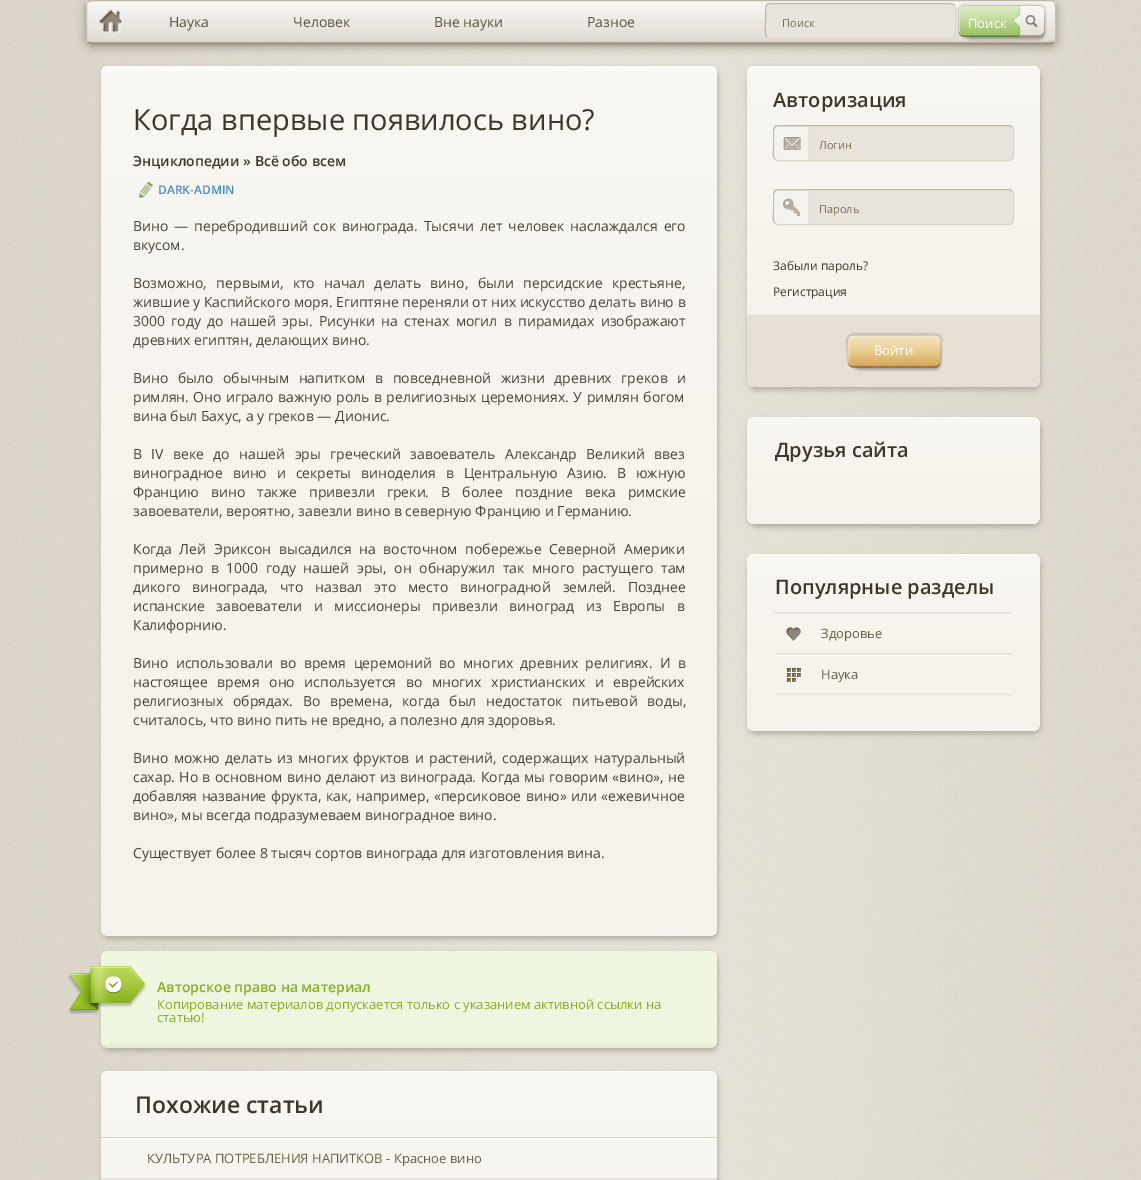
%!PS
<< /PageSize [1141 1180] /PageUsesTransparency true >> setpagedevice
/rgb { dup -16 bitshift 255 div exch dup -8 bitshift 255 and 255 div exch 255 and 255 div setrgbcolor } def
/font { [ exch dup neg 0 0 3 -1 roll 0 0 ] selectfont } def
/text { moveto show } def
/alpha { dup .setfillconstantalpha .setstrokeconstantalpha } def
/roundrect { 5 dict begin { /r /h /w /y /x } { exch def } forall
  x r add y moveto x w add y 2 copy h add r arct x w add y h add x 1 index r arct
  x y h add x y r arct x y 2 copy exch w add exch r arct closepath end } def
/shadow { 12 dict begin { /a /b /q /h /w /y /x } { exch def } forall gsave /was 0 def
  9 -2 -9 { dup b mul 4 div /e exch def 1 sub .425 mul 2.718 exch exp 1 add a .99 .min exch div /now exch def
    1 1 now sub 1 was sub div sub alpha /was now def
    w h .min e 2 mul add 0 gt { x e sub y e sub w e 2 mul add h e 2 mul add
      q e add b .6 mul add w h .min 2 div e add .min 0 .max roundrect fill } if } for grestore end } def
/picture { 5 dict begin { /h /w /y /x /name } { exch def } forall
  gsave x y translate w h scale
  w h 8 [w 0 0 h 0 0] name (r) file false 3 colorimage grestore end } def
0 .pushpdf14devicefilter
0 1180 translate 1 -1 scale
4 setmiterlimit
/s1 { /OpenSans-Regular 14 font 16#5D4F3E rgb } def
/s2 { /OpenSans-Regular 11 font 16#786E55 rgb } def
/s3 { /OpenSans-Regular 13 font 16#FFFFFF rgb } def
/s4 { /OpenSans-Regular 29 font 16#3E362B rgb } def
/s5 { /OpenSans-SemiBold 14 font 16#3E362B rgb } def
/s6 { /OpenSans-SemiBold 12 font 16#428BCA rgb } def
/s7 { /OpenSans-Regular 14 font 16#47423A rgb } def
/s8 { /OpenSans-SemiBold 14 font 16#86AD25 rgb } def
/s9 { /OpenSans-Regular 13 font 16#86AD25 rgb } def
/s10 { /OpenSans-SemiBold 23 font 16#3E362B rgb } def
/s11 { /OpenSans-Regular 13 font 16#675D45 rgb } def
/s12 { /OpenSans-SemiBold 20 font 16#3E362B rgb } def
/s13 { /OpenSans-Regular 12 font 16#3E362B rgb } def
16#FFFFFF rgb
0 0 1141 1180 rectfill
(pic1.raw) 0 0 1141 1180 picture
16#80776A rgb
87 3 968 42 5 5 1 shadow
gsave
86 0 970 44 6 roundrect clip newpath
gsave 86 1 moveto 1056 1 lineto 1056 43 lineto 86 43 lineto closepath clip newpath
<< /ShadingType 2 /ColorSpace /DeviceRGB /Coords [571 1 571 43] /Extend [true true] /Function << /FunctionType 3 /Domain [0 1] /Functions [<< /FunctionType 2 /Domain [0 1] /C0 [0.973 0.969 0.961] /C1 [0.886 0.863 0.835] /N 1 >> << /FunctionType 2 /Domain [0 1] /C0 [0.886 0.863 0.835] /C1 [0.749 0.69 0.624] /N 1 >>] /Bounds [0.94] /Encode [0 1 0 1] >> >> shfill grestore
grestore
16#C0B8A9 rgb
88 2 moveto 89 1 90.5 0.5 92 0.5 curveto 1050 0.5 lineto 1051.5 0.5 1053 1 1054 2 curveto stroke
16#C7BFB2 rgb
1054 2 moveto 1055 3 1055.5 4.5 1055.5 6 curveto 1055.5 38 lineto 1055.5 39.5 1055 41 1054 42 curveto stroke
16#978A7A rgb
1054 42 moveto 1053 43 1051.5 43.5 1050 43.5 curveto 92 43.5 lineto 90.5 43.5 89 43 88 42 curveto stroke
16#C7BFB2 rgb
88 42 moveto 87 41 86.5 39.5 86.5 38 curveto 86.5 6 lineto 86.5 4.5 87 3 88 2 curveto stroke
(pic2.raw) 99 9 24 24 picture
s1
(Наука) 169 27 text
(Человек) 293 27 text
(Вне науки) 434 27 text
(Разное) 587 27 text
16#E8E4DB rgb
765 3 191 36 5 roundrect fill
16#DAD4C9 rgb
954 5 moveto 957 7.5 955.5 17.5 955.5 21 curveto 955.5 29.5 lineto 955.5 33 956 38.5 951 38.5 curveto 770 38.5 lineto 767 37 lineto stroke
16#C0B9AE rgb
767 37 moveto 764 34.5 765.5 24.5 765.5 21 curveto 765.5 12.5 lineto 765.5 9 765 3.5 770 3.5 curveto 951 3.5 lineto 954 5 lineto stroke
s2
(Поиск) 782 27 text
(pic3.raw) 1004 3 43 39 picture
(pic4.raw) 956 3 51 39 picture
s3
(Поиск) 968 28 text
16#B5ADA2 rgb
102 69 616 870 8 2.5 1 shadow
gsave 101 66 616 870 8 roundrect clip newpath
<< /ShadingType 2 /ColorSpace /DeviceRGB /Coords [409 66 409 936] /Extend [true true] /Function << /FunctionType 3 /Domain [0 1] /Functions [<< /FunctionType 2 /Domain [0 1] /C0 [0.996 0.996 0.988] /C1 [0.973 0.965 0.945] /N 1 >> << /FunctionType 2 /Domain [0 1] /C0 [0.973 0.965 0.945] /C1 [0.961 0.949 0.922] /N 1 >>] /Bounds [0.01] /Encode [0 1 0 1] >> >> shfill grestore
s4
(Когда впервые появилось вино?) 133 130 text
s5
(Энциклопедии » Всё обо всем) 133 166 text
(pic5.raw) 139 182 14 16 picture
s6
(DARK-ADMIN) 158 194 text
/OpenSans-Regular 14 font
16#47423A rgb
133 231 moveto 2.25 0 32 (Вино — перебродивший сок винограда. Тысячи лет человек наслаждался его) widthshow
(вкусом.) 133 250 text
133 288 moveto 5.75 0 32 (Возможно, первыми, кто начал делать вино, были персидские крестьяне,) widthshow
(жившие у Каспийского моря. Египтяне переняли от них искусство делать вино в) 133 307 text
133 326 moveto 2.75 0 32 (3000 году до нашей эры. Рисунки на стенах могил в пирамидах изображают) widthshow
(древних египтян, делающих вино.) 133 345 text
133 383 moveto 6 0 32 (Вино было обычным напитком в повседневной жизни древних греков и) widthshow
133 402 moveto 0.75 0 32 (римлян. Оно играло важную роль в религиозных церемониях. У римлян богом) widthshow
(вина был Бахус, а у греков — Дионис.) 133 421 text
133 459 moveto 5.75 0 32 (В IV веке до нашей эры греческий завоеватель Александр Великий ввез) widthshow
133 478 moveto 6.25 0 32 (виноградное вино и секреты виноделия в Центральную Азию. В южную) widthshow
133 497 moveto 8.5 0 32 (Францию вино также привезли греки. В более поздние века римские) widthshow
(завоеватели, вероятно, завезли вино в северную Францию и Германию.) 133 516 text
133 554 moveto 4 0 32 (Когда Лей Эриксон высадился на восточном побережье Северной Америки) widthshow
133 573 moveto 4 0 32 (примерно в 1000 году нашей эры, он обнаружил так много растущего там) widthshow
133 592 moveto 8.25 0 32 (дикого винограда, что назвал это место виноградной землей. Позднее) widthshow
133 611 moveto 8 0 32 (испанские завоеватели и миссионеры привезли виноград из Европы в) widthshow
(Калифорнию.) 133 630 text
133 668 moveto 3.75 0 32 (Вино использовали во время церемоний во многих древних религиях. И в) widthshow
133 687 moveto 6 0 32 (настоящее время оно используется во многих христианских и еврейских) widthshow
133 706 moveto 6 0 32 (религиозных обрядах. Во времена, когда был недостаток питьевой воды,) widthshow
(считалось, что вино пить не вредно, а полезно для здоровья.) 133 725 text
133 763 moveto 1.75 0 32 (Вино можно делать из многих фруктов и растений, содержащих натуральный) widthshow
133 782 moveto 0.75 0 32 (сахар. Но в основном вино делают из винограда. Когда мы говорим «вино», не) widthshow
133 801 moveto 0.75 0 32 (добавляя название фрукта, как, например, «персиковое вино» или «ежевичное) widthshow
(вино», мы всегда подразумеваем виноградное вино.) 133 820 text
(Существует более 8 тысяч сортов винограда для изготовления вина.) 133 858 text
16#B5ADA2 rgb
102 954 616 97 8 2.5 1 shadow
gsave 101 951 616 97 8 roundrect clip newpath
<< /ShadingType 2 /ColorSpace /DeviceRGB /Coords [409 951 409 1048] /Extend [true true] /Function << /FunctionType 3 /Domain [0 1] /Functions [<< /FunctionType 2 /Domain [0 1] /C0 [0.933 0.965 0.875] /C1 [0.933 0.965 0.875] /N 1 >> << /FunctionType 2 /Domain [0 1] /C0 [0.933 0.965 0.875] /C1 [0.894 0.922 0.835] /N 1 >>] /Bounds [0.94] /Encode [0 1 0 1] >> >> shfill grestore
(pic6.raw) 67 966 79 49 picture
s8
(Авторское право на материал) 157 992 text
s9
(Копирование материалов допускается только с указанием активной ссылки на) 157 1009 text
(статью!) 157 1022 text
16#B5ADA2 rgb
102 1074 616 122 8 2.5 1 shadow
gsave 101 1071 616 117 8 roundrect clip newpath
<< /ShadingType 2 /ColorSpace /DeviceRGB /Coords [409 1071 409 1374] /Extend [true true] /Function << /FunctionType 3 /Domain [0 1] /Functions [<< /FunctionType 2 /Domain [0 1] /C0 [0.996 0.996 0.988] /C1 [0.973 0.965 0.945] /N 1 >> << /FunctionType 2 /Domain [0 1] /C0 [0.973 0.965 0.945] /C1 [0.961 0.949 0.922] /N 1 >>] /Bounds [0.01] /Encode [0 1 0 1] >> >> shfill grestore
16#FBFAF8 rgb
101 1138 616 1 rectfill
16#D8D4C7 rgb
101 1137 616 1 rectfill
s10
(Похожие статьи) 135 1113 text
16#FBFBF8 rgb
101 1139 616 1 rectfill
16#E7E3DC rgb
101 1178 616 2 rectfill
s11
(КУЛЬТУРА ПОТРЕБЛЕНИЯ НАПИТКОВ - Красное вино) 147 1163 text
16#B5ADA2 rgb
748 69 293 321 8 2.5 1 shadow
gsave 747 66 293 321 8 roundrect clip newpath
<< /ShadingType 2 /ColorSpace /DeviceRGB /Coords [894 66 894 387] /Extend [true true] /Function << /FunctionType 3 /Domain [0 1] /Functions [<< /FunctionType 2 /Domain [0 1] /C0 [0.996 0.996 0.988] /C1 [0.973 0.965 0.945] /N 1 >> << /FunctionType 2 /Domain [0 1] /C0 [0.973 0.965 0.945] /C1 [0.961 0.949 0.922] /N 1 >>] /Bounds [0.01] /Encode [0 1 0 1] >> >> shfill grestore
s12
(Авторизация) 773 107 text
16#E8E4DB rgb
773 125 241 36 5 roundrect fill
16#DAD4C9 rgb
1012 127 moveto 1015 129.5 1013.5 135.5 1013.5 138.5 curveto 1013.5 151.5 lineto 1013.5 155 1014 160.5 1009 160.5 curveto 778 160.5 lineto 775 159 lineto stroke
16#C0B9AE rgb
775 159 moveto 772 156.5 773.5 150.5 773.5 147.5 curveto 773.5 134.5 lineto 773.5 131 773 125.5 778 125.5 curveto 1009 125.5 lineto 1012 127 lineto stroke
0.5 alpha
16#FFFFFF rgb
779 127 moveto 810 127 lineto 810 160 lineto 779 160 lineto 776 160 774 158 774 155 curveto 774 132 lineto 774 129 776 127 779 127 curveto closepath fill
1 alpha
(pic7.raw) 783 137 19 15 picture
16#E7E2DA rgb
808 127 2 33 rectfill
s2
(Логин) 819 149 text
16#E8E4DB rgb
773 189 241 36 5 roundrect fill
16#DAD4C9 rgb
1012 191 moveto 1015 193.5 1013.5 199.5 1013.5 202.5 curveto 1013.5 215.5 lineto 1013.5 219 1014 224.5 1009 224.5 curveto 778 224.5 lineto 775 223 lineto stroke
16#C0B9AE rgb
775 223 moveto 772 220.5 773.5 214.5 773.5 211.5 curveto 773.5 198.5 lineto 773.5 195 773 189.5 778 189.5 curveto 1009 189.5 lineto 1012 191 lineto stroke
0.5 alpha
16#FFFFFF rgb
779 191 moveto 810 191 lineto 810 224 lineto 779 224 lineto 776 224 774 222 774 219 curveto 774 196 lineto 774 193 776 191 779 191 curveto closepath fill
1 alpha
(pic8.raw) 783 198 19 19 picture
16#E7E2DA rgb
808 191 2 33 rectfill
s2
(Пароль) 819 213 text
s13
(Забыли пароль?) 773 270 text
(Регистрация) 773 296 text
16#E5DFD5 rgb
747 315 moveto 1040 315 lineto 1040 379 lineto 1040 383.5 1036.5 387 1032 387 curveto 755 387 lineto 750.5 387 747 383.5 747 379 curveto closepath fill
(pic9.raw) 911 332 32 40 picture
(pic10.raw) 845 332 68 40 picture
s3
(Войти) 874 355 text
16#B5ADA2 rgb
748 420 293 107 8 2.5 1 shadow
gsave 747 417 293 107 8 roundrect clip newpath
<< /ShadingType 2 /ColorSpace /DeviceRGB /Coords [894 417 894 524] /Extend [true true] /Function << /FunctionType 3 /Domain [0 1] /Functions [<< /FunctionType 2 /Domain [0 1] /C0 [0.996 0.996 0.988] /C1 [0.973 0.965 0.945] /N 1 >> << /FunctionType 2 /Domain [0 1] /C0 [0.973 0.965 0.945] /C1 [0.961 0.949 0.922] /N 1 >>] /Bounds [0.01] /Encode [0 1 0 1] >> >> shfill grestore
s12
(Друзья сайта) 775 457 text
16#B5ADA2 rgb
748 557 293 177 8 2.5 1 shadow
gsave 747 554 293 177 8 roundrect clip newpath
<< /ShadingType 2 /ColorSpace /DeviceRGB /Coords [894 554 894 731] /Extend [true true] /Function << /FunctionType 3 /Domain [0 1] /Functions [<< /FunctionType 2 /Domain [0 1] /C0 [0.996 0.996 0.988] /C1 [0.973 0.965 0.945] /N 1 >> << /FunctionType 2 /Domain [0 1] /C0 [0.973 0.965 0.945] /C1 [0.961 0.949 0.922] /N 1 >>] /Bounds [0.01] /Encode [0 1 0 1] >> >> shfill grestore
s12
(Популярные разделы) 775 594 text
16#E7E3DC rgb
775 612 237 2 rectfill
16#FBFBF8 rgb
775 691 237 1 rectfill
775 614 237 1 rectfill
16#E7E3DC rgb
775 653 237 2 rectfill
(pic11.raw) 786 627 16 15 picture
s11
(Здоровье) 821 638 text
16#FBFBF8 rgb
775 655 237 1 rectfill
16#E7E3DC rgb
775 694 237 1 rectfill
(pic12.raw) 787 668 15 15 picture
s11
(Наука) 821 679 text
.poppdf14devicefilter showpage
